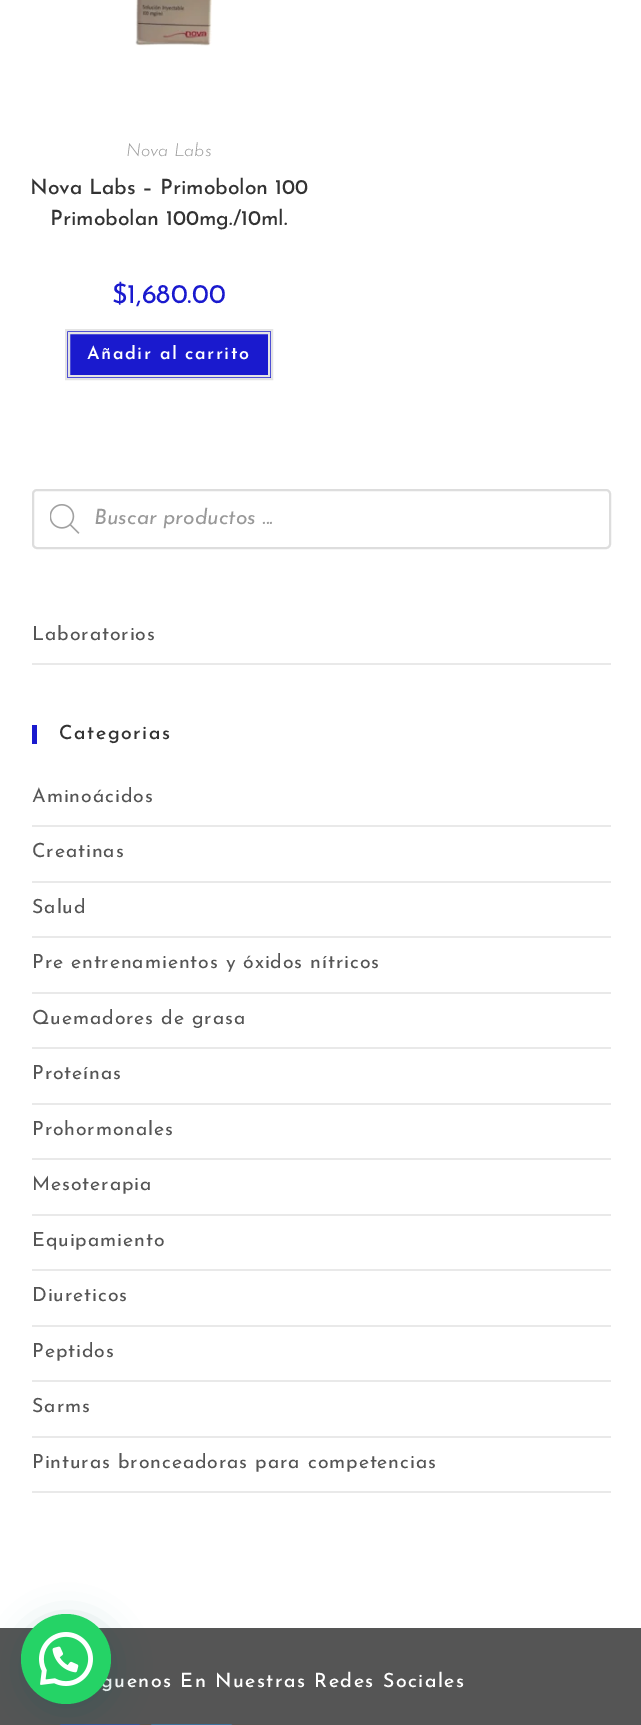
%!PS
<< /PageSize [641 1725] /PageUsesTransparency true >> setpagedevice
/rgb { dup -16 bitshift 255 div exch dup -8 bitshift 255 and 255 div exch 255 and 255 div setrgbcolor } def
/font { [ exch dup neg 0 0 3 -1 roll 0 0 ] selectfont } def
/text { moveto show } def
/alpha { dup .setfillconstantalpha .setstrokeconstantalpha } def
/circle { newpath 0 360 arc closepath } def
/roundrect { 5 dict begin { /r /h /w /y /x } { exch def } forall
  x r add y moveto x w add y 2 copy h add r arct x w add y h add x 1 index r arct
  x y h add x y r arct x y 2 copy exch w add exch r arct closepath end } def
/shadow { 12 dict begin { /a /b /q /h /w /y /x } { exch def } forall gsave /was 0 def
  9 -2 -9 { dup b mul 4 div /e exch def 1 sub .425 mul 2.718 exch exp 1 add a .99 .min exch div /now exch def
    1 1 now sub 1 was sub div sub alpha /was now def
    w h .min e 2 mul add 0 gt { x e sub y e sub w e 2 mul add h e 2 mul add
      q e add b .6 mul add w h .min 2 div e add .min 0 .max roundrect fill } if } for grestore end } def
/picture { 5 dict begin { /h /w /y /x /name } { exch def } forall
  gsave x y translate w h scale
  w h 8 [w 0 0 h 0 0] name (r) file false 3 colorimage grestore end } def
0 .pushpdf14devicefilter
0 1725 translate 1 -1 scale
4 setmiterlimit
/s1 { /JosefinSans-LightItalic 18 font 16#999999 rgb } def
/s2 { /JosefinSans-Medium 21 font 16#333333 rgb } def
/s3 { /JosefinSans-Regular 27 font 16#1A1ACE rgb } def
/s4 { /JosefinSans-Italic 21 font 16#999999 rgb } def
16#FFFFFF rgb
0 0 641 1725 rectfill
(pic1.raw) 135 0 77 46 picture
s1
(Nova Labs) 126 156 text
s2
(Nova Labs – Primobolon 100) 30 194 text
(Primobolan 100mg./10ml.) 50 225 text
s3
($1,680.00) 112 303 text
66 330 moveto 272 330 lineto 272 379 lineto 66 379 lineto closepath gsave fill grestore
16#E4E4E4 rgb
2 setlinewidth
stroke
69 333 200 43 rectstroke
/JosefinSans-SemiBold 18 font
16#FFFFFF rgb
87 359 moveto 1.5 0 (Añadir al carrito) ashow
16#DDDDDD rgb
33 490 577 58 4 roundrect stroke
(pic2.raw) 50 504 30 30 picture
s4
(Buscar productos ...) 94 524 text
16#E9E9E9 rgb
32 663 579 2 rectfill
/JosefinSans-Regular 19.5 font
16#555555 rgb
32 640 moveto 0.9 0 (Laboratorios) ashow
16#1A1ACE rgb
32 725 5 19 rectfill
/JosefinSans-Medium 19.5 font
16#333333 rgb
59 739 moveto 1.5 0 (Categorias) ashow
16#E9E9E9 rgb
32 825 579 2 rectfill
/JosefinSans-Regular 19.5 font
16#555555 rgb
32 802 moveto 0.9 0 (Aminoácidos) ashow
16#E9E9E9 rgb
32 881 579 2 rectfill
16#555555 rgb
32 857 moveto 0.9 0 (Creatinas) ashow
16#E9E9E9 rgb
32 936 579 2 rectfill
16#555555 rgb
32 913 moveto 0.9 0 (Salud) ashow
16#E9E9E9 rgb
32 992 579 2 rectfill
16#555555 rgb
32 968 moveto 0.9 0 (Pre entrenamientos y óxidos nítricos) ashow
16#E9E9E9 rgb
32 1047 579 2 rectfill
16#555555 rgb
32 1024 moveto 0.9 0 (Quemadores de grasa) ashow
16#E9E9E9 rgb
32 1103 579 2 rectfill
16#555555 rgb
32 1079 moveto 0.9 0 (Proteínas) ashow
16#E9E9E9 rgb
32 1158 579 2 rectfill
16#555555 rgb
32 1135 moveto 0.9 0 (Prohormonales) ashow
16#E9E9E9 rgb
32 1214 579 2 rectfill
16#555555 rgb
32 1190 moveto 0.9 0 (Mesoterapia) ashow
16#E9E9E9 rgb
32 1269 579 2 rectfill
16#555555 rgb
32 1246 moveto 0.9 0 (Equipamiento) ashow
16#E9E9E9 rgb
32 1325 579 2 rectfill
16#555555 rgb
32 1301 moveto 0.9 0 (Diureticos) ashow
16#E9E9E9 rgb
32 1380 579 2 rectfill
16#555555 rgb
32 1357 moveto 0.9 0 (Peptidos) ashow
16#E9E9E9 rgb
32 1436 579 2 rectfill
16#555555 rgb
32 1412 moveto 0.9 0 (Sarms) ashow
16#E9E9E9 rgb
32 1491 579 2 rectfill
16#555555 rgb
32 1468 moveto 0.9 0 (Pinturas bronceadoras para competencias) ashow
0 1628 641 97 rectfill
/JosefinSans-Medium 19.5 font
16#FFFFFF rgb
101 1687 moveto 1.5 0 (guenos En Nuestras Redes Sociales) ashow
16#37589B rgb
59 1724 82 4 3 roundrect fill
16#3F729B rgb
150 1724 83 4 3 roundrect fill
16#075E54 rgb
23 1623 90 90 45 18 0.24 shadow
16#25D366 rgb
66 1659 45 circle fill
(pic3.raw) 39 1632 54 54 picture
.poppdf14devicefilter showpage
